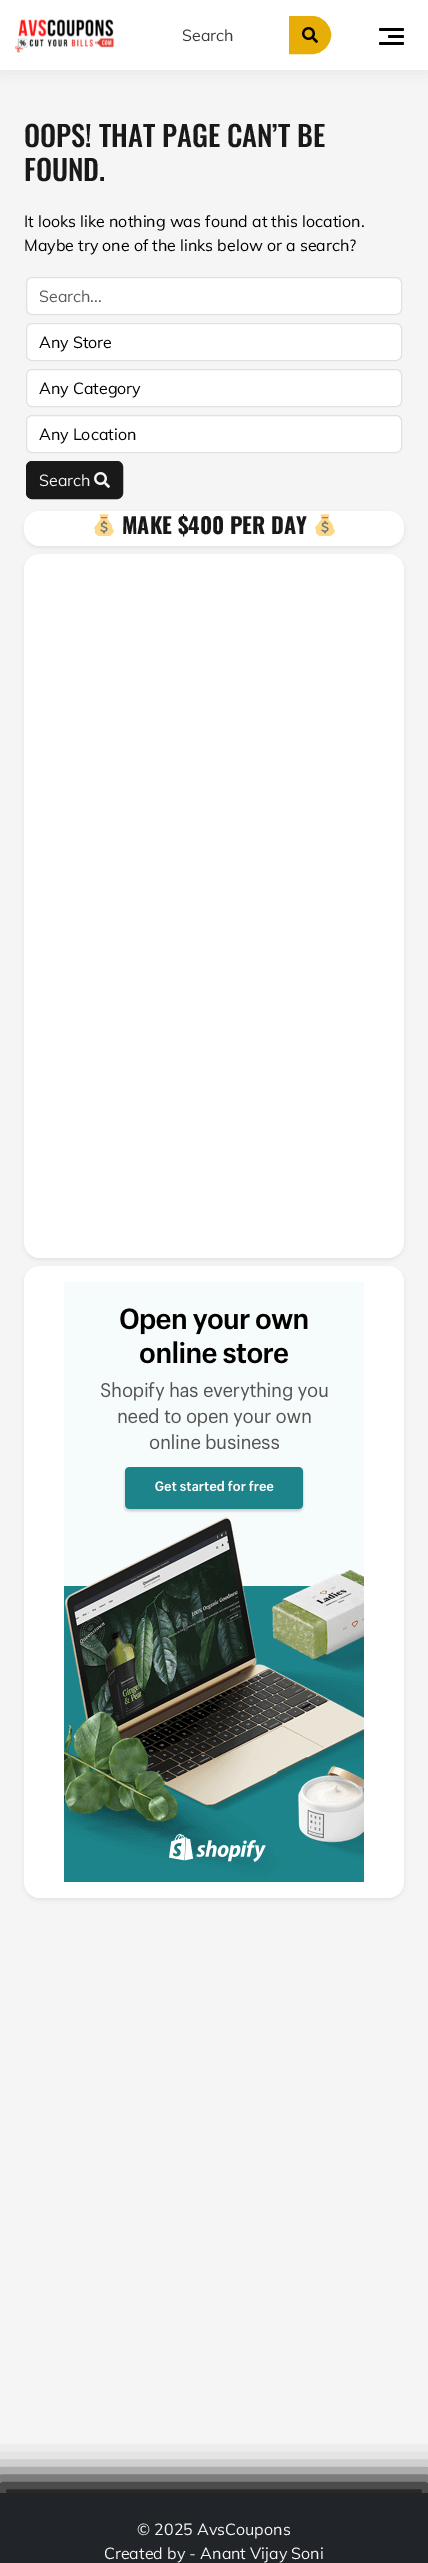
%!PS
<< /PageSize [428 2563] /PageUsesTransparency true >> setpagedevice
/rgb { dup -16 bitshift 255 div exch dup -8 bitshift 255 and 255 div exch 255 and 255 div setrgbcolor } def
/font { [ exch dup neg 0 0 3 -1 roll 0 0 ] selectfont } def
/text { moveto show } def
/alpha { dup .setfillconstantalpha .setstrokeconstantalpha } def
/roundrect { 5 dict begin { /r /h /w /y /x } { exch def } forall
  x r add y moveto x w add y 2 copy h add r arct x w add y h add x 1 index r arct
  x y h add x y r arct x y 2 copy exch w add exch r arct closepath end } def
/shadow { 12 dict begin { /a /b /q /h /w /y /x } { exch def } forall gsave /was 0 def
  9 -2 -9 { dup b mul 4 div /e exch def 1 sub .425 mul 2.718 exch exp 1 add a .99 .min exch div /now exch def
    1 1 now sub 1 was sub div sub alpha /was now def
    w h .min e 2 mul add 0 gt { x e sub y e sub w e 2 mul add h e 2 mul add
      q e add b .6 mul add w h .min 2 div e add .min 0 .max roundrect fill } if } for grestore end } def
/picture { 5 dict begin { /h /w /y /x /name } { exch def } forall
  gsave x y translate w h scale
  w h 8 [w 0 0 h 0 0] name (r) file false 3 colorimage grestore end } def
0 .pushpdf14devicefilter
0 2563 translate 1 -1 scale
4 setmiterlimit
/s1 { /Muli-Regular 16 font 16#3C3C3C rgb } def
/s2 { /Oswald-Medium 28.5 font 16#191919 rgb } def
/s3 { /Muli-Regular 16 font 16#000000 rgb } def
/s4 { /Muli-Regular 16 font 16#595C5F rgb } def
/s5 { /Muli-Regular 16 font 16#F5F5F5 rgb } def
/s6 { /Oswald-Bold 22 font 16#191919 rgb } def
16#F5F5F5 rgb
0 0 428 2563 rectfill
16#000000 rgb
0 8 428 65 0 8 0.05 shadow
16#FFFFFF rgb
0 0 428 70 rectfill
(pic1.raw) 15 19 99 34 picture
s1
(Search) 182 41 text
16#E6AE06 rgb
289.5 16.5 moveto 312 16.5 lineto 322 16.5 330.5 25 330.5 35 curveto 330.5 45 322 53.5 312 53.5 curveto 289.5 53.5 lineto closepath gsave fill grestore
stroke
(pic2.raw) 302 27 16 16 picture
16#000000 rgb
379 42 25 3 1.5 roundrect fill
388 35 16 3 1.5 roundrect fill
379 28 25 3 1.5 roundrect fill
s2
(OOPS! THAT PAGE CAN’T BE) 24 147 text
(FOUND.) 24 181 text
s3
(It looks like nothing was found at this location.) 24 227 text
(Maybe try one of the links below or a search?) 24 251 text
16#FFFFFF rgb
26.5 277.5 375 37 5.5 roundrect gsave fill grestore
16#DEE2E6 rgb
stroke
s4
(Search...) 39 302 text
16#FFFFFF rgb
26.5 323.5 375 37 5.5 roundrect gsave fill grestore
16#DEE2E6 rgb
stroke
s3
(Any Store) 39 348 text
16#FFFFFF rgb
26.5 369.5 375 37 5.5 roundrect gsave fill grestore
16#DEE2E6 rgb
stroke
s3
(Any Category) 39 394 text
16#FFFFFF rgb
26.5 415.5 375 37 5.5 roundrect gsave fill grestore
16#DEE2E6 rgb
stroke
s3
(Any Location) 39 440 text
16#191919 rgb
26.5 461.5 96 37 5.5 roundrect gsave fill grestore
stroke
s5
(Search) 39 486 text
(pic3.raw) 94 472 16 16 picture
16#000000 rgb
24 513 380 35 16 2 0.07 shadow
16#FFFFFF rgb
24 511 380 35 16 roundrect fill
(pic4.raw) 94 514 20 22 picture
s6
(MAKE $400 PER DAY) 122 534 text
(pic4.raw) 315 514 20 22 picture
16#000000 rgb
24 556 380 704 16 2 0.07 shadow
16#FFFFFF rgb
24 554 380 704 16 roundrect fill
16#000000 rgb
24 1268 380 632 16 2 0.07 shadow
16#FFFFFF rgb
24 1266 380 632 16 roundrect fill
(pic5.raw) 64 1282 300 600 picture
16#000000 rgb
-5 2478 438 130 0 15 1 shadow
16#212529 rgb
0 2493 428 70 rectfill
s5
(© 2025 AvsCoupons) 137 2535 text
(Created by - Anant Vijay Soni) 104 2559 text
.poppdf14devicefilter showpage
